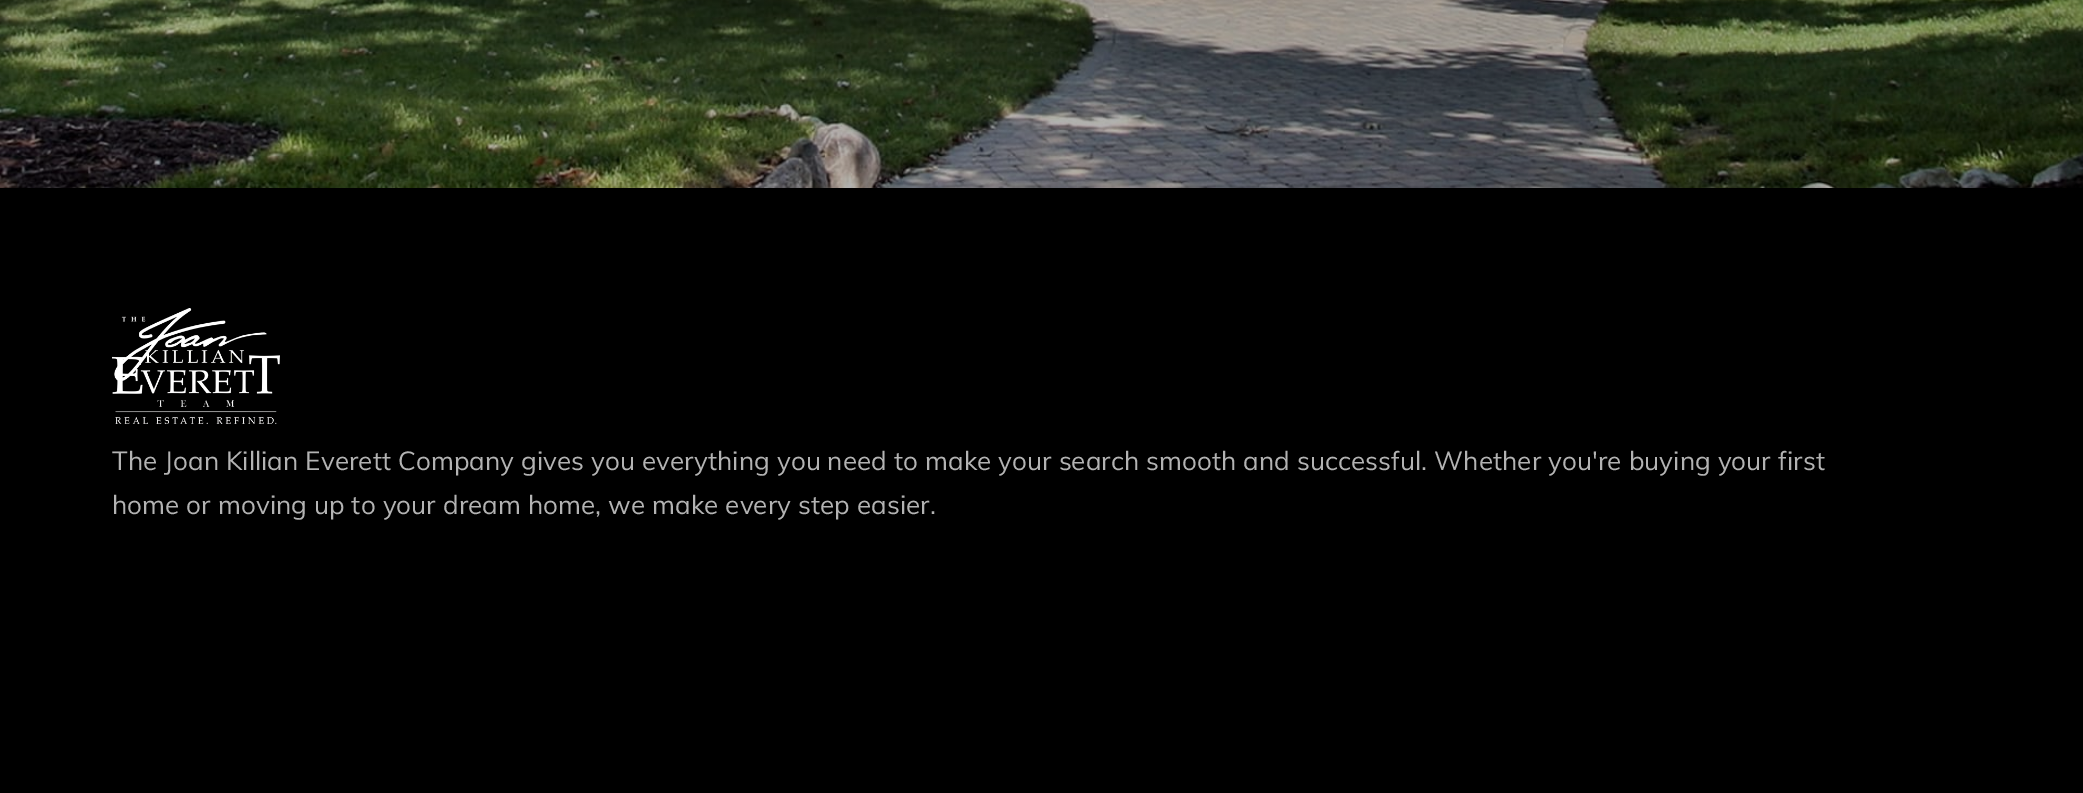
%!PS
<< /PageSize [2083 793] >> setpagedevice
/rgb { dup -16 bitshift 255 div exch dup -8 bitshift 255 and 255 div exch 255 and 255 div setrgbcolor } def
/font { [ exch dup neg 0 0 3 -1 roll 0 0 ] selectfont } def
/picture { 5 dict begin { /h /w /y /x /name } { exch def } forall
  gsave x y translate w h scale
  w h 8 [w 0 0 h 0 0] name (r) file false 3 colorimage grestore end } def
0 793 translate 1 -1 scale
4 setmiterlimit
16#FFFFFF rgb
0 0 2083 793 rectfill
(pic1.raw) 0 0 2083 188 picture
16#000000 rgb
0 188 2083 605 rectfill
(pic2.raw) 112 308 168 116 picture
/Muli-Regular 26 font
16#B3B3B3 rgb
112 470 moveto 0.1 0 (The Joan Killian Everett Company gives you everything you need to make your search smooth and successful. Whether you're buying your first) ashow
112 514 moveto 0.1 0 (home or moving up to your dream home, we make every step easier.) ashow
showpage
